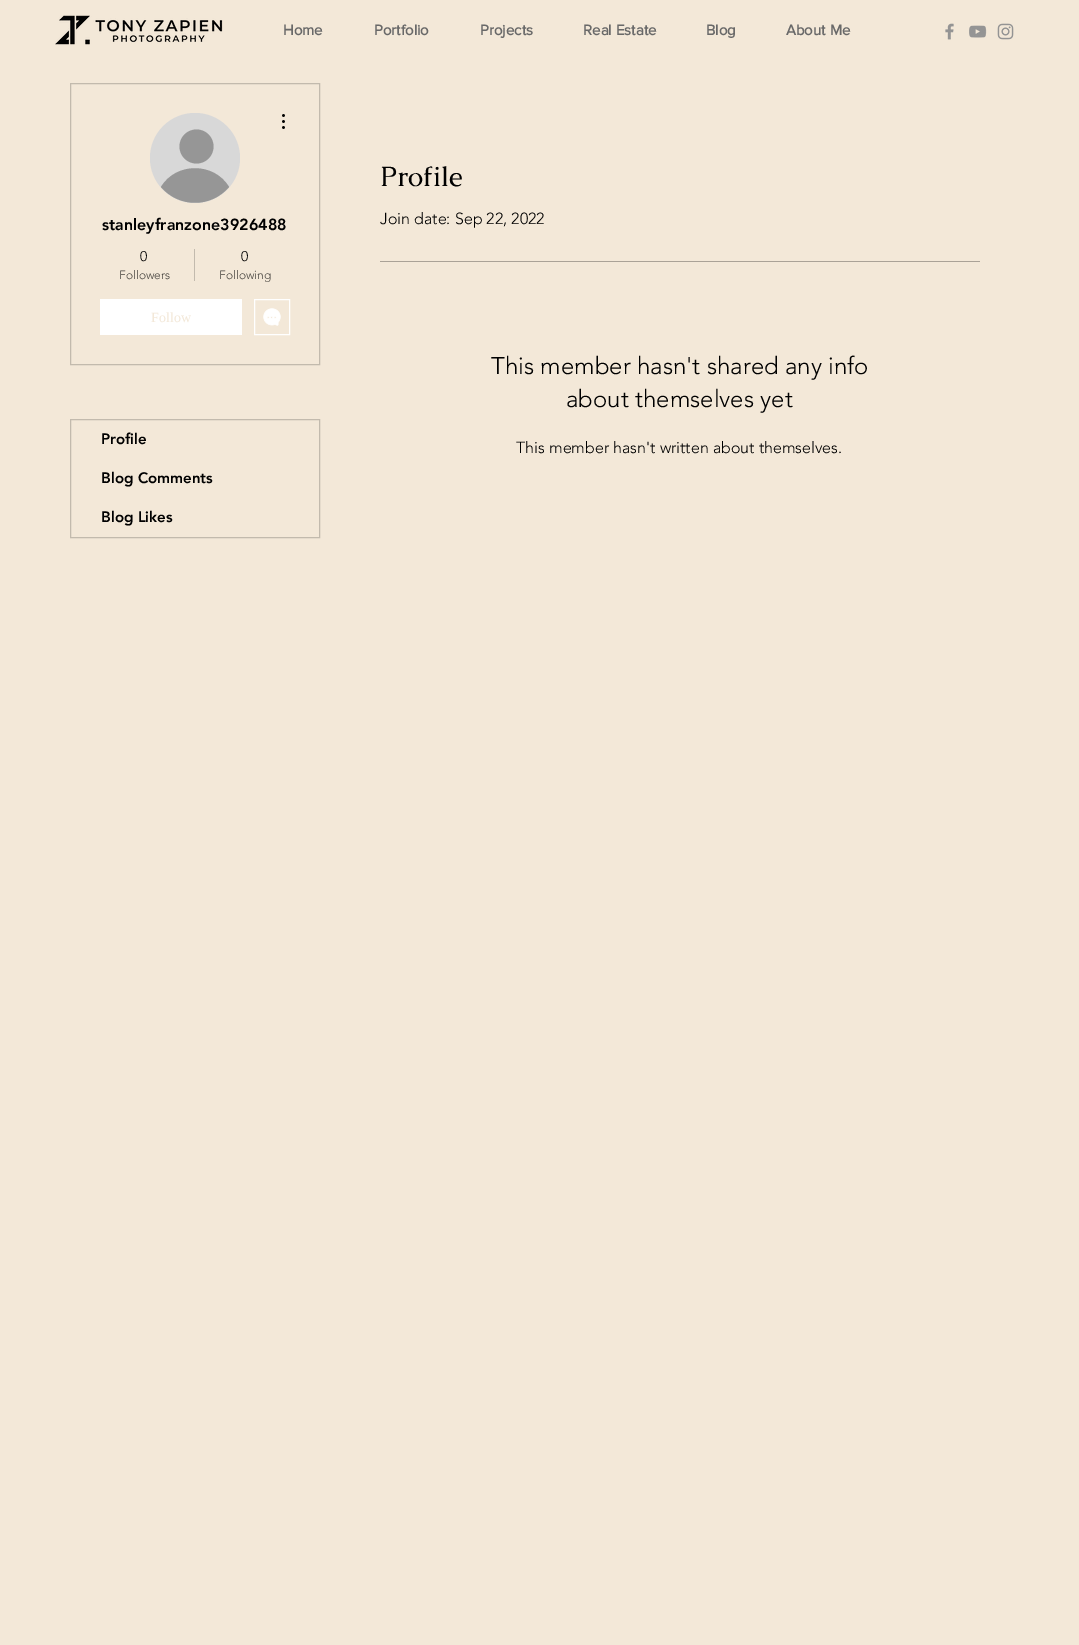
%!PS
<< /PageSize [1079 1645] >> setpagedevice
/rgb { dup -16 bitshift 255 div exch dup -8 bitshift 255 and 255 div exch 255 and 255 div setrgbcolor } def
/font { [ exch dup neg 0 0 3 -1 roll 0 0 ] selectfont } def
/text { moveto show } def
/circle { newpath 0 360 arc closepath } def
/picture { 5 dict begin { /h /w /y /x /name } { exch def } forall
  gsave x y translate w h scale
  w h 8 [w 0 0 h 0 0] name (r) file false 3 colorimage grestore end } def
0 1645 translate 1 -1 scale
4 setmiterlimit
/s1 { /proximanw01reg-Bold 15 font 16#696969 rgb } def
/s2 { /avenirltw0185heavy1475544-Black 16 font 16#000000 rgb } def
/s3 { /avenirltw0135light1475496-Light 14 font 16#000000 rgb } def
/s4 { /avenirltw0135light1475496-Light 12 font 16#494641 rgb } def
/s5 { /LiberationSerif-Regular 14 font 16#F3E8D8 rgb } def
/s6 { /avenirltw0185heavy1475544-Black 15 font 16#000000 rgb } def
/s7 { /Caudex-Regular 28 font 16#000000 rgb } def
/s8 { /avenirltw0135light1475496-Light 16 font 16#000000 rgb } def
/s9 { /avenirltw0135light1475496-Light 24 font 16#000000 rgb } def
16#F3E8D8 rgb
0 0 1079 1645 rectfill
(pic1.raw) 55 15 168 30 picture
s1
(Home) 283 35 text
(Portfolio) 374 35 text
(Projects) 480 35 text
(Real Estate) 583 35 text
(Blog) 706 35 text
(About Me) 786 35 text
(pic2.raw) 945 23 9 17 picture
(pic3.raw) 969 25 18 13 picture
(pic4.raw) 997 23 17 17 picture
16#C2BAAD rgb
70.5 83.5 249 281 rectstroke
16#D8D8D8 rgb
195 158 45 circle fill
16#969696 rgb
196.5 146.5 17 circle fill
229 187 moveto 211 208 179 208 161 187 curveto 176 162 214 162 229 187 curveto closepath fill
(pic5.raw) 282 114 3 15 picture
s2
(stanleyfranzone3926488) 102 230 text
s3
(0) 140 261 text
s4
(Followers) 119 279 text
16#C2BAAD rgb
194 249 1 32 rectfill
s3
(0) 241 261 text
s4
(Following) 219 279 text
16#FFFFFF rgb
100 299 142 36 rectfill
s5
(Follow) 151 322 text
16#FFFFFF rgb
254.5 299.5 35 35 rectstroke
(pic6.raw) 263 308 18 18 picture
16#C2BAAD rgb
70.5 419.5 249 118 rectstroke
s6
(Profile) 101 444 text
(Blog Comments) 101 483 text
(Blog Likes) 101 522 text
s7
(Profile) 380 186 text
s8
(Join date: Sep 22, 2022) 380 224 text
16#AAA297 rgb
380 261 600 1 rectfill
s9
(This member hasn't shared any info) 491 374 text
(about themselves yet) 566 407 text
s8
(This member hasn't written about themselves.) 516 453 text
showpage
